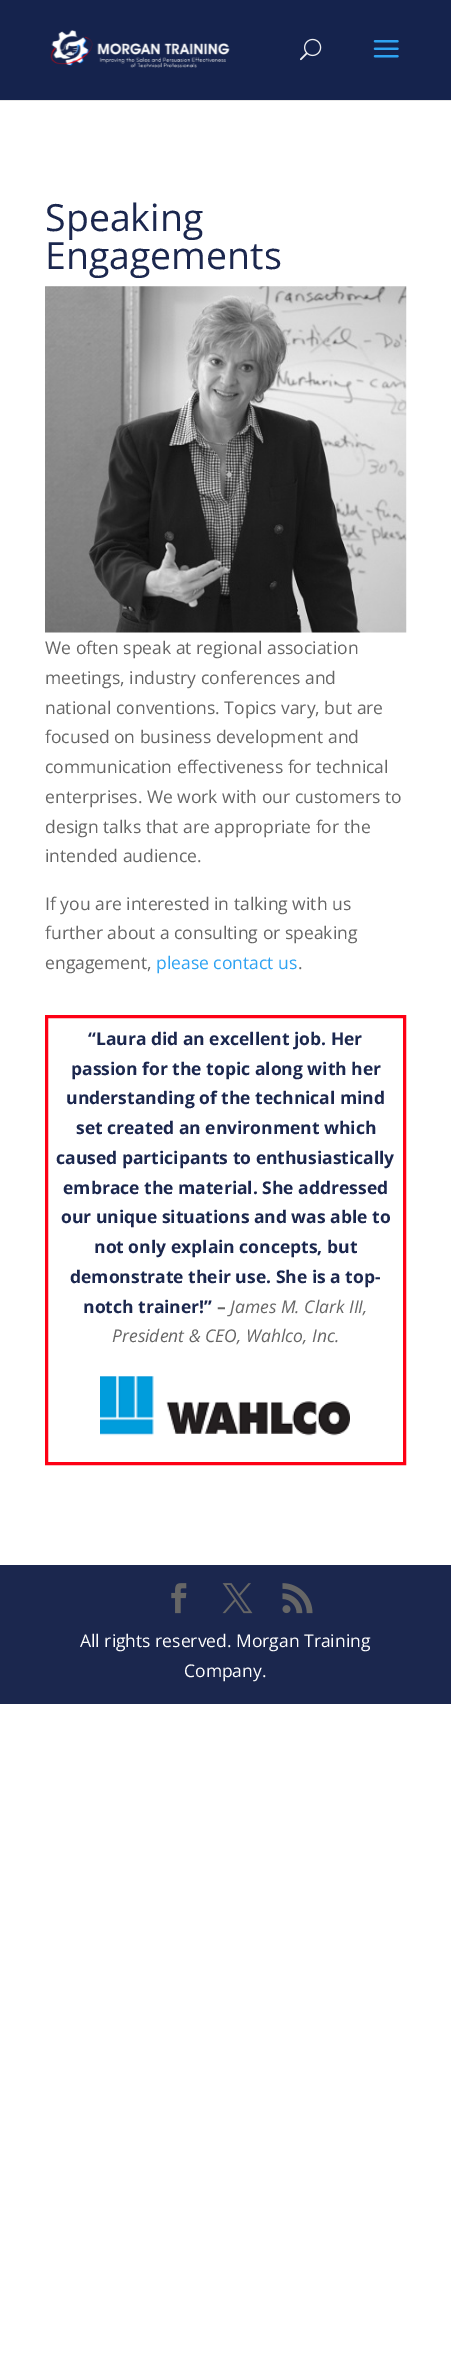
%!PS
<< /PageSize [451 2364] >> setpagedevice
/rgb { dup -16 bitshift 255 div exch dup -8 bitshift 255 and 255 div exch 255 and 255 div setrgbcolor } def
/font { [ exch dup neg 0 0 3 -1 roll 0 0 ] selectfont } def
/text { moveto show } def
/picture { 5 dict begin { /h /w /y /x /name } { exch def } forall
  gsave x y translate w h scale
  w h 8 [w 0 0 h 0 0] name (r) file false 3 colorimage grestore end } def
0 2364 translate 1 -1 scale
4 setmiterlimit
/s1 { /OpenSans-Regular 37.5 font 16#1B274E rgb } def
/s2 { /OpenSans-Regular 17.5 font 16#666666 rgb } def
/s3 { /OpenSans-Regular 17.5 font 16#2EA3F2 rgb } def
/s4 { /OpenSans-Bold 17.5 font 16#1B274E rgb } def
/s5 { /OpenSans-Bold 17.5 font 16#666666 rgb } def
/s6 { /OpenSans-Italic 17.5 font 16#666666 rgb } def
/s7 { /OpenSans-Regular 17.5 font 16#FFFFFF rgb } def
16#FFFFFF rgb
0 0 451 2364 rectfill
16#E6E6E6 rgb
0 100 451 1 rectfill
16#15234D rgb
0 0 451 100 rectfill
(pic1.raw) 50 30 180 38 picture
(pic2.raw) 300 38 22 23 picture
(pic3.raw) 373 40 26 18 picture
s1
(Speaking) 45 231 text
(Engagements) 45 269 text
(pic4.raw) 45 286 362 347 picture
s2
(We often speak at regional association) 45 654 text
(meetings, industry conferences and) 45 684 text
(national conventions. Topics vary, but are) 45 714 text
(focused on business development and) 45 743 text
(communication effectiveness for technical) 45 773 text
(enterprises. We work with our customers to) 45 803 text
(design talks that are appropriate for the) 45 833 text
(intended audience.) 45 862 text
(If you are interested in talking with us) 45 910 text
(further about a consulting or speaking) 45 939 text
(engagement,) 45 969 text
s3
(please contact us) 156 969 text
s2
(.) 298 969 text
16#FE0014 rgb
3 setlinewidth
46.5 1016.5 358 447 rectstroke
s4
(“Laura did an excellent job. Her) 88 1045 text
(passion for the topic along with her) 71 1075 text
(understanding of the technical mind) 66 1104 text
(set created an environment which) 76 1134 text
(caused participants to enthusiastically) 56 1164 text
(embrace the material. She addressed) 63 1194 text
(our unique situations and was able to) 61 1223 text
(not only explain concepts, but) 94 1253 text
(demonstrate their use. She is a top-) 70 1283 text
(notch trainer!”) 83 1313 text
s5
(–) 217 1313 text
s6
(James M. Clark III,) 230 1313 text
(President & CEO, Wahlco, Inc.) 112 1342 text
(pic5.raw) 100 1376 250 60 picture
16#1B274E rgb
0 1565 451 139 rectfill
(pic6.raw) 171 1583 16 31 picture
(pic7.raw) 222 1583 31 31 picture
(pic8.raw) 282 1583 31 31 picture
s7
(All rights reserved. Morgan Training) 80 1647 text
(Company.) 184 1677 text
showpage
